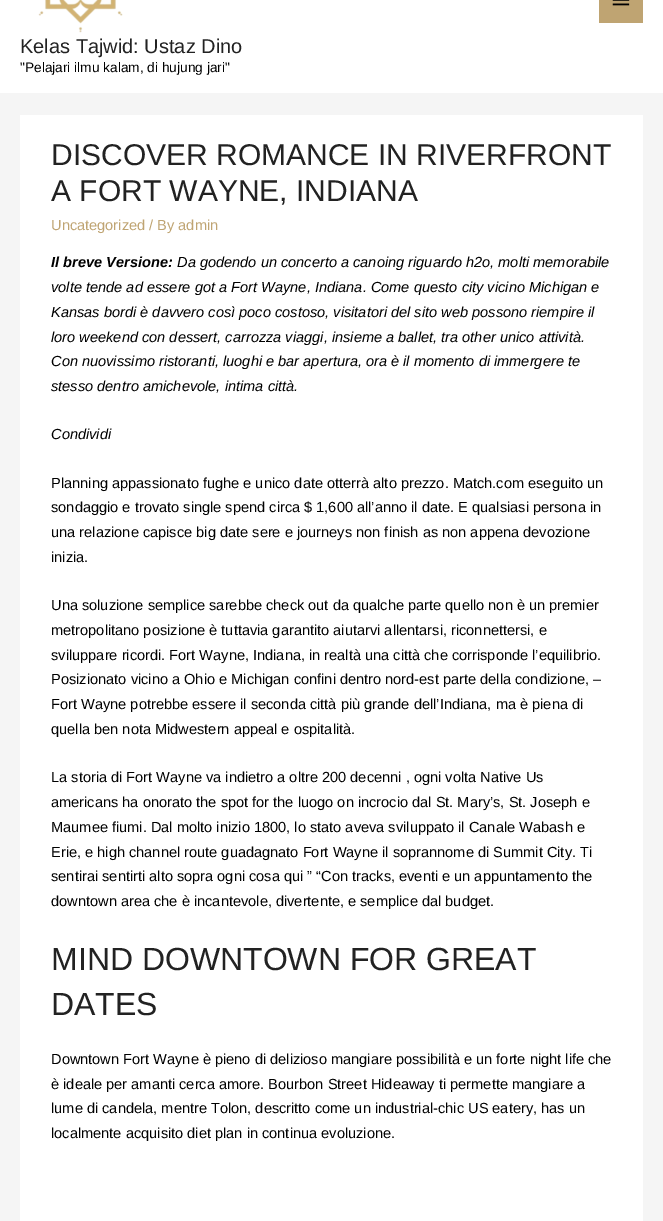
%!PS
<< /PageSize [663 1221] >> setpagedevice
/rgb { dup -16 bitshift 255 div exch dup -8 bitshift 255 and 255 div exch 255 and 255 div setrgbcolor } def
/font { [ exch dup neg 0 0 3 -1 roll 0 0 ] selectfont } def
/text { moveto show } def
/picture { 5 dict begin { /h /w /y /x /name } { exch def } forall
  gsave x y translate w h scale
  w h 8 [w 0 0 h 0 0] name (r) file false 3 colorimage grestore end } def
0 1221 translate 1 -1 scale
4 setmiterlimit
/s1 { /LiberationSans-Regular 20 font 16#222222 rgb } def
/s2 { /LiberationSans-Regular 13.7 font 16#000000 rgb } def
/s3 { /LiberationSans-Regular 30 font 16#222222 rgb } def
/s4 { /LiberationSans-Regular 14.6 font 16#BFA472 rgb } def
/s5 { /LiberationSans-BoldItalic 14.6 font 16#000000 rgb } def
/s6 { /LiberationSans-Italic 14.6 font 16#000000 rgb } def
/s7 { /LiberationSans-Regular 14.6 font 16#000000 rgb } def
/s8 { /LiberationSans-Regular 32 font 16#222222 rgb } def
16#F5F5F5 rgb
0 0 663 1221 rectfill
16#FFFFFF rgb
0 0 663 93 rectfill
16#BFA472 rgb
599 0 44 23 rectfill
(pic1.raw) 612 0 18 6 picture
(pic2.raw) 38 0 85 33 picture
s1
(Kelas Tajwid: Ustaz Dino) 20 53 text
s2
("Pelajari ilmu kalam, di hujung jari") 20 72 text
16#FFFFFF rgb
20 115 623 1106 rectfill
s3
(DISCOVER ROMANCE IN RIVERFRONT) 51 165 text
(A FORT WAYNE, INDIANA) 51 201 text
s4
(Uncategorized / By admin) 51 230 text
s5
(Il breve Versione:) 51 267 text
s6
(Da godendo un concerto a canoing riguardo h2o, molti memorabile) 177 267 text
(volte tende ad essere got a Fort Wayne, Indiana. Come questo city vicino Michigan e) 51 292 text
(Kansas bordi è davvero così poco costoso, visitatori del sito web possono riempire il) 51 317 text
(loro weekend con dessert, carrozza viaggi, insieme a ballet, tra other unico attività.) 51 342 text
(Con nuovissimo ristoranti, luoghi e bar apertura, ora è il momento di immergere te) 51 366 text
(stesso dentro amichevole, intima città.) 51 391 text
(Condividi) 51 439 text
s7
(Planning appassionato fughe e unico date otterrà alto prezzo. Match.com eseguito un) 51 488 text
(sondaggio e trovato single spend circa $ 1,600 all’anno il date. E qualsiasi persona in) 51 512 text
(una relazione capisce big date sere e journeys non finish as non appena devozione) 51 537 text
(inizia.) 51 562 text
(Una soluzione semplice sarebbe check out da qualche parte quello non è un premier) 51 610 text
(metropolitano posizione è tuttavia garantito aiutarvi allentarsi, riconnettersi, e) 51 635 text
(sviluppare ricordi. Fort Wayne, Indiana, in realtà una città che corrisponde l’equilibrio.) 51 660 text
(Posizionato vicino a Ohio e Michigan confini dentro nord-est parte della condizione, –) 51 684 text
(Fort Wayne potrebbe essere il seconda città più grande dell’Indiana, ma è piena di) 51 709 text
(quella ben nota Midwestern appeal e ospitalità.) 51 734 text
(La storia di Fort Wayne va indietro a oltre 200 decenni , ogni volta Native Us) 51 782 text
(americans ha onorato the spot for the luogo on incrocio dal St. Mary’s, St. Joseph e) 51 807 text
(Maumee fiumi. Dal molto inizio 1800, lo stato aveva sviluppato il Canale Wabash e) 51 832 text
(Erie, e high channel route guadagnato Fort Wayne il soprannome di Summit City. Ti) 51 857 text
(sentirai sentirti alto sopra ogni cosa qui ” “Con tracks, eventi e un appuntamento the) 51 881 text
(downtown area che è incantevole, divertente, e semplice dal budget.) 51 906 text
s8
(MIND DOWNTOWN FOR GREAT) 51 970 text
(DATES) 51 1015 text
s7
(Downtown Fort Wayne è pieno di delizioso mangiare possibilità e un forte night life che) 51 1064 text
(è ideale per amanti cerca amore. Bourbon Street Hideaway ti permette mangiare a) 51 1089 text
(lume di candela, mentre Tolon, descritto come un industrial-chic US eatery, has un) 51 1113 text
(localmente acquisito diet plan in continua evoluzione.) 51 1138 text
showpage
